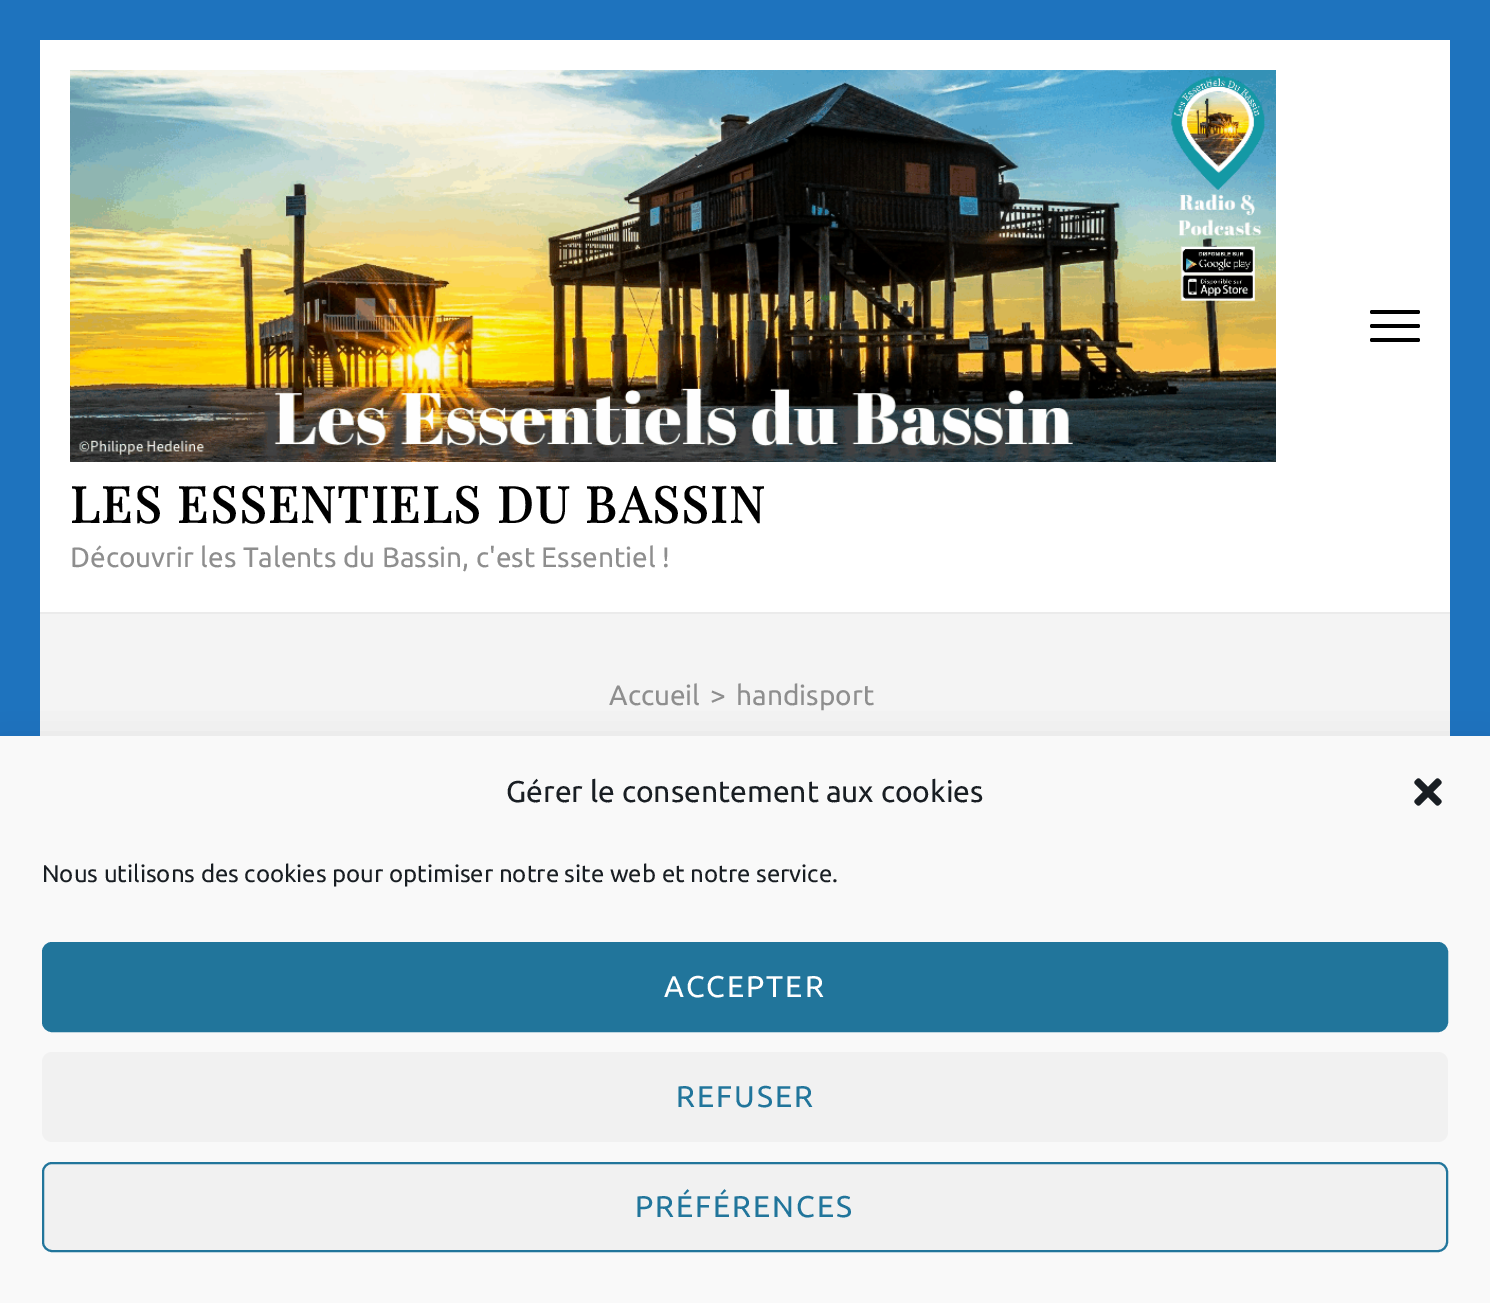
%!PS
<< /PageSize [1490 1303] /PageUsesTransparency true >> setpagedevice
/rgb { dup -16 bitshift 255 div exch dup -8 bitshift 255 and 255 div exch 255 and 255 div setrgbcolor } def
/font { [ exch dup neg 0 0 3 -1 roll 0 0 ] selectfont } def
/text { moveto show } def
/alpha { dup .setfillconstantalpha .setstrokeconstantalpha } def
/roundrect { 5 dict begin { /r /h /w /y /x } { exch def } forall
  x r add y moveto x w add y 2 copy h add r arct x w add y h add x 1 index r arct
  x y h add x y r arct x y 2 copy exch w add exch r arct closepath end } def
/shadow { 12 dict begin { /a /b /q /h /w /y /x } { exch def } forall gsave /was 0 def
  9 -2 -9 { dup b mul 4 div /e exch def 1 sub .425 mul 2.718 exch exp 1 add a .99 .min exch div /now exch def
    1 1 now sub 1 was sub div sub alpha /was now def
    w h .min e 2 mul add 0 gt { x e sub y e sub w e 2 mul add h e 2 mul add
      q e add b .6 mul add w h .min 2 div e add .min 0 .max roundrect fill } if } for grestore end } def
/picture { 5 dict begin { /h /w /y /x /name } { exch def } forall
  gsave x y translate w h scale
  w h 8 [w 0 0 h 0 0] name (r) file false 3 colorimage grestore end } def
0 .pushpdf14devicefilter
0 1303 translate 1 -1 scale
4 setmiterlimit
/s1 { /Ubuntu-Regular 28 font 16#8E8E8E rgb } def
/s2 { /Ubuntu-Regular 30 font 16#191E23 rgb } def
/s3 { /Ubuntu-Regular 24 font 16#191E23 rgb } def
16#1E73BE rgb
0 0 1490 1303 rectfill
16#FFFFFF rgb
40 40 1410 572 rectfill
16#000000 rgb
1370 310 50 4 2 roundrect fill
1370 324 50 4 2 roundrect fill
1370 338 50 4 2 roundrect fill
(pic1.raw) 70 70 1206 392 picture
/PlayfairDisplay-Bold 50 font
70 523 moveto 2 0 (LES ESSENTIELS DU BASSIN) ashow
s1
(Découvrir les Talents du Bassin, c'est Essentiel !) 70 567 text
16#F4F4F4 rgb
40 614 1410 122 rectfill
16#EBEBEB rgb
40 612 1410 2 rectfill
s1
(Accueil) 609 705 text
(>) 710 705 text
(handisport) 736 705 text
16#000000 rgb
0 756 1490 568 0 20 0.19 shadow
16#F9F9F9 rgb
0 736 1490 567 rectfill
s2
(Gérer le consentement aux cookies) 506 802 text
(pic2.raw) 1414 778 28 28 picture
s3
(Nous utilisons des cookies pour optimiser notre site web et notre service.) 42 882 text
16#21759B rgb
43 943 1404 88 9 roundrect gsave fill grestore
2 setlinewidth
stroke
/Ubuntu-Regular 30 font
16#FFFFFF rgb
664 997 moveto 2 0 (ACCEPTER) ashow
16#F1F1F1 rgb
42 1052 1406 90 10 roundrect fill
16#21759B rgb
676 1107 moveto 2 0 (REFUSER) ashow
16#F1F1F1 rgb
43 1163 1404 88 9 roundrect gsave fill grestore
16#21759B rgb
stroke
635 1217 moveto 2 0 (PRÉFÉRENCES) ashow
.poppdf14devicefilter showpage
